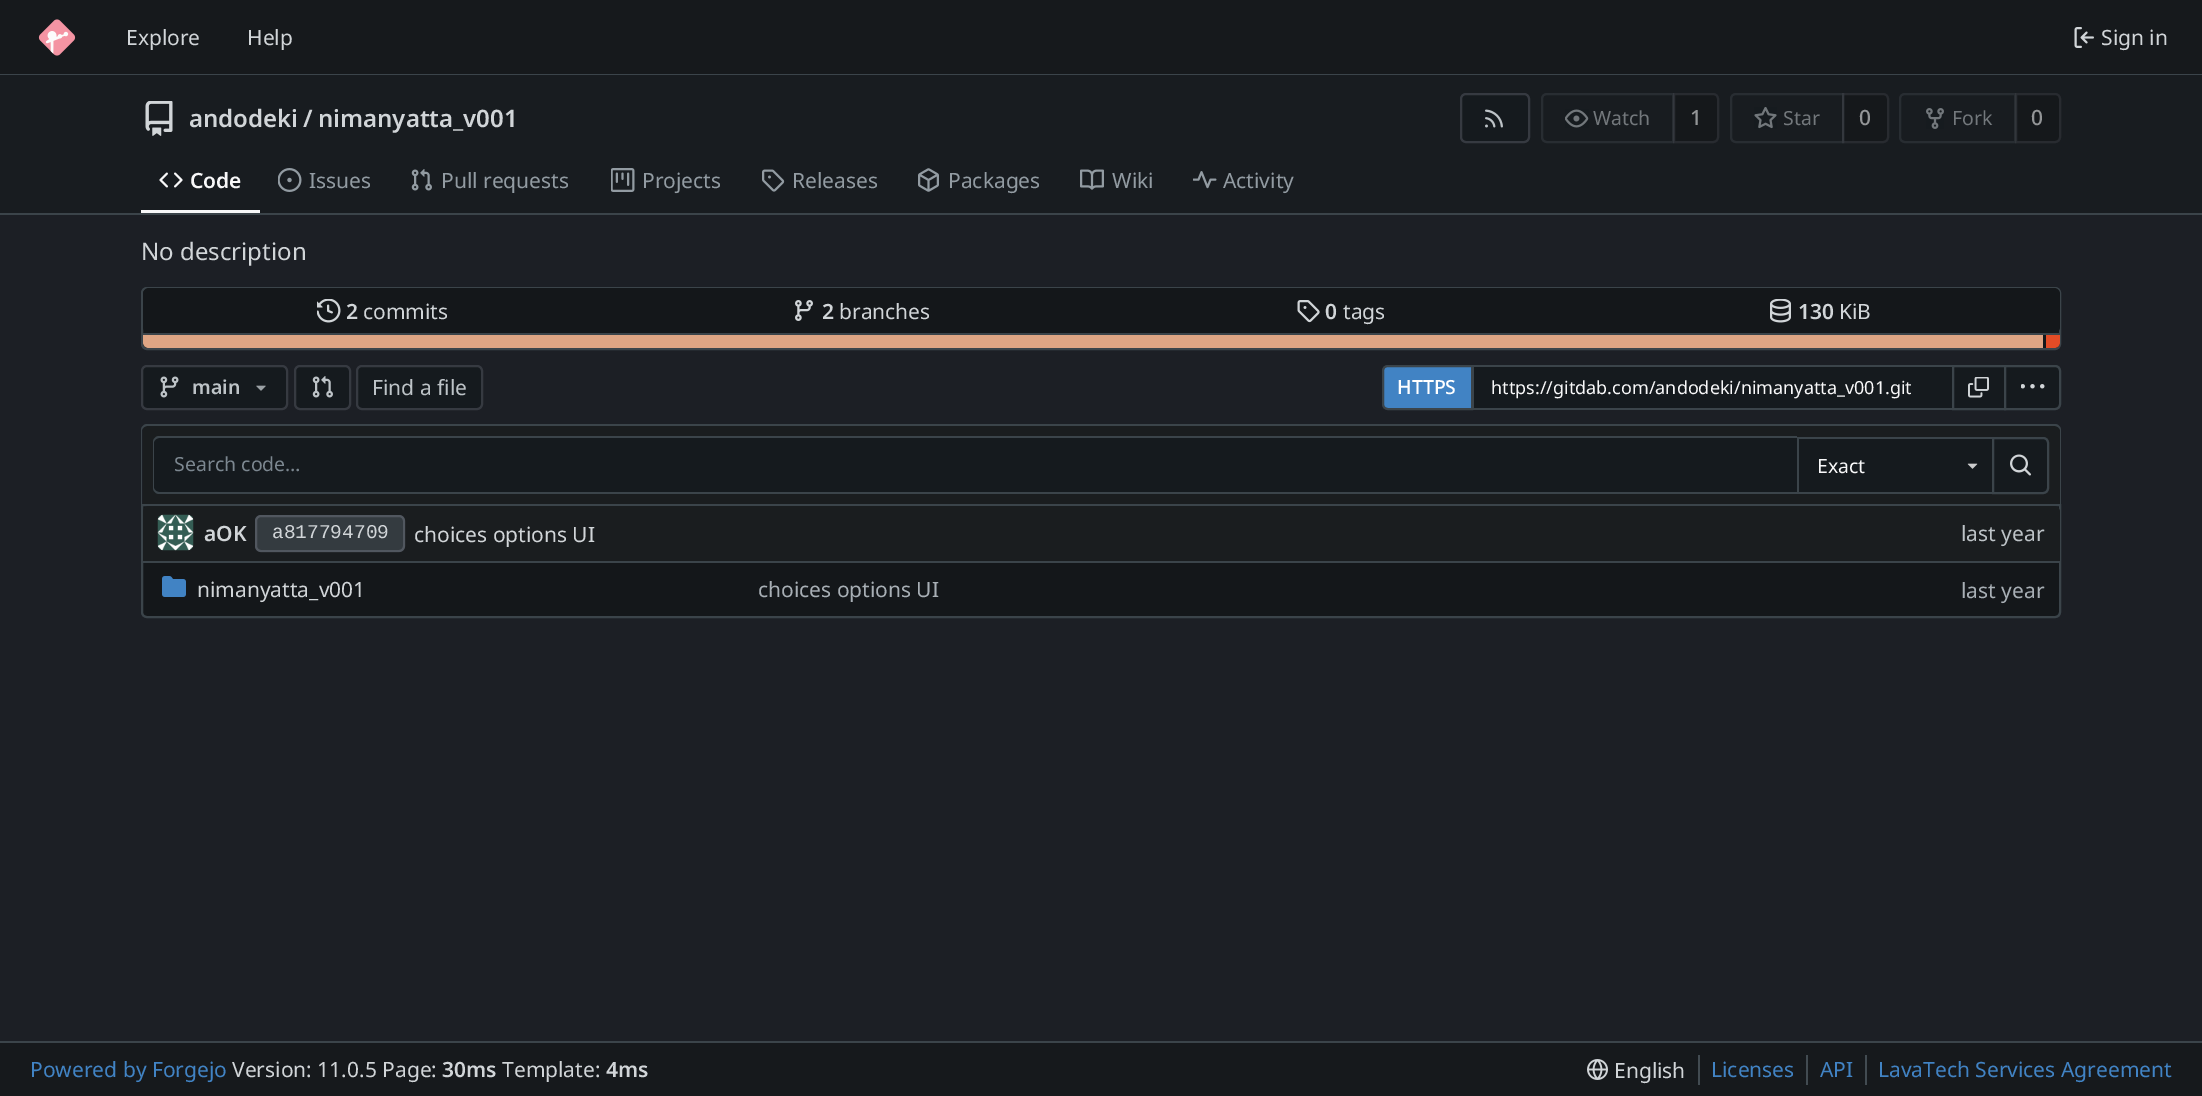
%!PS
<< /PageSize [2202 1096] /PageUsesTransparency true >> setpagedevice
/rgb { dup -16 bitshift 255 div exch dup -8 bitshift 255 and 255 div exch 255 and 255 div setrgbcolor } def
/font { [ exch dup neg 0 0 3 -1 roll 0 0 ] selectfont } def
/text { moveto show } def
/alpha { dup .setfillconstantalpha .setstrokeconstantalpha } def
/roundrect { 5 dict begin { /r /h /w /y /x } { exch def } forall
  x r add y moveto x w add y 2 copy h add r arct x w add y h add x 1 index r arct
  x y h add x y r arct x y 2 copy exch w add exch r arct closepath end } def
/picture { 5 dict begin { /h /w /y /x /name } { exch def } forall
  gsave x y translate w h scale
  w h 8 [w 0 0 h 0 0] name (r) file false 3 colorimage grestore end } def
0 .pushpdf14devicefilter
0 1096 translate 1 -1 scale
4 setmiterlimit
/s1 { /NotoSans-Regular 21 font 16#D1D5D8 rgb } def
/s2 { /NotoSans-SemiBold 24 font 16#D1D5D8 rgb } def
/s3 { /NotoSans-Regular 19.5 font 16#73787C rgb } def
/s4 { /NotoSans-Medium 21 font 16#939597 rgb } def
/s5 { /NotoSans-SemiBold 21 font 16#F8F8F9 rgb } def
/s6 { /NotoSans-Regular 21 font 16#929BA2 rgb } def
/s7 { /NotoSans-Regular 24 font 16#D1D5D8 rgb } def
/s8 { /NotoSans-SemiBold 21 font 16#D1D5D8 rgb } def
/s9 { /NotoSans-SemiBold 19.5 font 16#BDC3C7 rgb } def
/s10 { /NotoSans-Regular 21 font 16#BDC3C7 rgb } def
/s11 { /NotoSans-Medium 19.5 font 16#FFFFFF rgb } def
/s12 { /NotoSans-Regular 18 font 16#F8F8F9 rgb } def
/s13 { /NotoSans-Regular 19.5 font 16#7C8790 rgb } def
/s14 { /NotoSans-Regular 19.5 font 16#F8F8F9 rgb } def
/s15 { /LiberationMono-Regular 19.5 font 16#D1D5D8 rgb } def
/s16 { /NotoSans-Regular 21 font 16#A8AFB5 rgb } def
/s17 { /NotoSans-Regular 21 font 16#4183C4 rgb } def
16#1C1F25 rgb
0 0 2202 1096 rectfill
16#16191C rgb
0 0 2202 74 rectfill
16#3B444A rgb
0 74 2202 1 rectfill
(pic1.raw) 38 19 38 37 picture
s1
(Explore) 126 45 text
(Help) 247 45 text
(pic2.raw) 2074 27 20 21 picture
(Sign in) 2101 45 text
16#181C20 rgb
0 75 2202 138 rectfill
(pic3.raw) 145 101 28 35 picture
s2
(andodeki) 189 127 text
(/) 303 127 text
(nimanyatta_v001) 318 127 text
16#151A1E rgb
1461 94 68 48 5 roundrect gsave fill grestore
16#363A41 rgb
2 setlinewidth
stroke
(pic4.raw) 1485 109 18 19 picture
16#282D32 rgb
1547 94 moveto 1673 94 lineto 1673 142 lineto 1547 142 lineto 1544 142 1542 140 1542 137 curveto 1542 99 lineto 1542 96 1544 94 1547 94 curveto closepath stroke
(pic5.raw) 1565 109 24 19 picture
s3
(Watch) 1593 125 text
0.14 alpha
16#000000 rgb
1673 93 moveto 1713 93 lineto 1716.5 93 1719 95.5 1719 99 curveto 1719 137 lineto 1719 140.5 1716.5 143 1713 143 curveto 1673 143 lineto closepath fill
0.09 alpha
16#E8E8FF rgb
1674 94 moveto 1713 94 lineto 1716 94 1718 96 1718 99 curveto 1718 137 lineto 1718 140 1716 142 1713 142 curveto 1674 142 lineto closepath stroke
1 alpha
s4
(1) 1690 125 text
16#282D32 rgb
1736 94 moveto 1843 94 lineto 1843 142 lineto 1736 142 lineto 1733 142 1731 140 1731 137 curveto 1731 99 lineto 1731 96 1733 94 1736 94 curveto closepath stroke
(pic6.raw) 1754 107 23 22 picture
s3
(Star) 1783 125 text
0.14 alpha
16#000000 rgb
1842 93 moveto 1883 93 lineto 1886.5 93 1889 95.5 1889 99 curveto 1889 137 lineto 1889 140.5 1886.5 143 1883 143 curveto 1842 143 lineto closepath fill
0.09 alpha
16#E8E8FF rgb
1843 94 moveto 1883 94 lineto 1886 94 1888 96 1888 99 curveto 1888 137 lineto 1888 140 1886 142 1883 142 curveto 1843 142 lineto closepath stroke
1 alpha
s4
(0) 1859 125 text
16#282D32 rgb
1905 94 moveto 2015 94 lineto 2015 142 lineto 1905 142 lineto 1902 142 1900 140 1900 137 curveto 1900 99 lineto 1900 96 1902 94 1905 94 curveto closepath stroke
(pic7.raw) 1926 108 18 21 picture
s3
(Fork) 1952 125 text
0.25 alpha
16#0B0D0E rgb
2015 93 moveto 2055 93 lineto 2058.5 93 2061 95.5 2061 99 curveto 2061 137 lineto 2061 140.5 2058.5 143 2055 143 curveto 2015 143 lineto closepath fill
0.16 alpha
16#8A8C9B rgb
2016 94 moveto 2055 94 lineto 2058 94 2060 96 2060 99 curveto 2060 137 lineto 2060 140 2058 142 2055 142 curveto 2016 142 lineto closepath stroke
1 alpha
s4
(0) 2031 125 text
16#F8F8F9 rgb
141 210 119 3 rectfill
(pic8.raw) 159 172 24 16 picture
s5
(Code) 190 188 text
(pic9.raw) 278 168 24 24 picture
s6
(Issues) 309 188 text
(pic10.raw) 411 169 21 22 picture
(Pull requests) 441 188 text
(pic11.raw) 611 168 24 24 picture
(Projects) 642 188 text
(pic12.raw) 762 169 23 23 picture
(Releases) 792 188 text
(pic13.raw) 918 168 21 24 picture
(Packages) 948 188 text
(pic14.raw) 1080 169 24 21 picture
(Wiki) 1112 188 text
(pic15.raw) 1193 171 24 18 picture
(Activity) 1223 188 text
16#3B444A rgb
0 213 2202 2 rectfill
s7
(No description) 141 260 text
16#14171A rgb
142 288 1918 61 5 roundrect gsave fill grestore
16#3B444A rgb
stroke
16#14171A rgb
143 288 1917 45 6 roundrect fill
(pic16.raw) 317 299 24 24 picture
s8
(2) 346 319 text
s1
(commits) 363 319 text
(pic17.raw) 795 300 18 21 picture
s8
(2) 822 319 text
s1
(branches) 839 319 text
(pic18.raw) 1297 300 23 23 picture
s8
(0) 1325 319 text
s1
(tags) 1343 319 text
(pic19.raw) 1770 299 21 24 picture
s8
(130) 1798 319 text
s1
(KiB) 1839 319 text
16#14171A rgb
143 333 moveto 2060 333 lineto 2060 342 lineto 2060 345.5 2057.5 348 2054 348 curveto 149 348 lineto 145.5 348 143 345.5 143 342 curveto closepath fill
16#3B444A rgb
143 333 1917 2 rectfill
16#DEA584 rgb
143 335 moveto 2043 335 lineto 2043 348 lineto 149 348 lineto 145.5 348 143 345.5 143 342 curveto closepath fill
16#E34C26 rgb
2046 335 moveto 2060 335 lineto 2060 342 lineto 2060 345.5 2057.5 348 2054 348 curveto 2046 348 lineto closepath fill
16#151A1E rgb
142 366 145 43 5 roundrect gsave fill grestore
16#363A41 rgb
stroke
(pic20.raw) 160 376 19 22 picture
s9
(main) 192 394 text
(pic21.raw) 256 385 10 6 picture
16#151A1E rgb
295 366 55 43 5 roundrect gsave fill grestore
16#363A41 rgb
stroke
(pic22.raw) 312 376 21 22 picture
16#151A1E rgb
357 366 125 43 5 roundrect gsave fill grestore
16#363A41 rgb
stroke
s10
(Find a file) 372 395 text
16#4183C4 rgb
1388 366 moveto 1472 366 lineto 1472 409 lineto 1388 409 lineto 1385 409 1383 407 1383 404 curveto 1383 371 lineto 1383 368 1385 366 1388 366 curveto closepath gsave fill grestore
16#3B444A rgb
stroke
s11
(HTTPS) 1397 394 text
16#151A1E rgb
1474 367 478 41 rectfill
16#3B444A rgb
1472 365 480 2 rectfill
1472 408 480 2 rectfill
1473 365 1 45 rectfill
s12
(https://gitdab.com/andodeki/nimanyatta_v001.git) 1491 394 text
16#151A1E rgb
1953 366 moveto 2005 366 lineto 2005 409 lineto 1953 409 lineto closepath gsave fill grestore
16#3B444A rgb
stroke
(pic23.raw) 1968 377 21 21 picture
16#151A1E rgb
2005 366 moveto 2055 366 lineto 2058 366 2060 368 2060 371 curveto 2060 404 lineto 2060 407 2058 409 2055 409 curveto 2005 409 lineto closepath gsave fill grestore
16#3B444A rgb
stroke
(pic24.raw) 2021 384 24 5 picture
16#1A1D1F rgb
148 426 moveto 2055 426 lineto 2058 426 2060 428 2060 431 curveto 2060 504 lineto 143 504 lineto 143 431 lineto 143 428 145 426 148 426 curveto closepath fill
16#3B444A rgb
147 424 moveto 2055 424 lineto 2058 424 2061 427 2061 430 curveto 2061 504 lineto 141 504 lineto 141 430 lineto 141 427 144 424 147 424 curveto closepath 147 426 moveto 2055 426 lineto 2057 426 2060 428 2060 430 curveto 2060 504 lineto 142 504 lineto 142 430 lineto 142 428 145 426 147 426 curveto closepath eofill
16#151A1E rgb
159 437 moveto 1797 437 lineto 1797 494 lineto 159 494 lineto 155.5 494 153 491.5 153 488 curveto 153 443 lineto 153 439.5 155.5 437 159 437 curveto closepath fill
16#3B444A rgb
159 436 moveto 1797 436 lineto 1797 494 lineto 159 494 lineto 156 494 153 491 153 488 curveto 153 442 lineto 153 439 156 436 159 436 curveto closepath 159 438 moveto 1797 438 lineto 1797 492 lineto 159 492 lineto 157 492 154 490 154 488 curveto 154 442 lineto 154 440 157 438 159 438 curveto closepath eofill
s13
(Search code…) 174 471 text
16#151A1E rgb
1799 439 193 53 rectfill
16#3B444A rgb
1797 437 195 2 rectfill
1797 492 195 2 rectfill
1797 437 2 57 rectfill
s14
(Exact) 1817 473 text
(pic25.raw) 1967 463 11 6 picture
16#151A1E rgb
1993 438 moveto 2043 438 lineto 2046 438 2048 440 2048 443 curveto 2048 488 lineto 2048 491 2046 493 2043 493 curveto 1993 493 lineto closepath gsave fill grestore
16#3B444A rgb
stroke
(pic26.raw) 2010 454 21 22 picture
16#14171A rgb
142 505 moveto 2060 505 lineto 2060 612 lineto 2060 615 2058 617 2055 617 curveto 147 617 lineto 144 617 142 615 142 612 curveto closepath gsave fill grestore
16#3B444A rgb
stroke
16#1A1D1F rgb
149 506 moveto 1953 506 lineto 1953 563 lineto 143 563 lineto 143 512 lineto 143 508.5 145.5 506 149 506 curveto closepath fill
16#3B444A rgb
143 561 1810 2 rectfill
(pic27.raw) 157 514 37 37 picture
s8
(aOK) 204 541 text
16#343B40 rgb
255 515 150 37 6 roundrect fill
0.16 alpha
16#E8E8FF rgb
256 516 148 35 5 roundrect stroke
1 alpha
s15
(a817794709) 272 538 text
s1
(choices options UI) 414 542 text
16#1A1D1F rgb
1953 506 moveto 2054 506 lineto 2057.5 506 2060 508.5 2060 512 curveto 2060 563 lineto 1953 563 lineto closepath fill
16#3B444A rgb
1953 561 107 2 rectfill
s10
(last year) 1961 541 text
(pic28.raw) 162 576 24 21 picture
s1
(nimanyatta_v001) 197 597 text
s16
(choices options UI) 758 597 text
(last year) 1961 598 text
16#16191C rgb
0 1043 2202 53 rectfill
16#3B444A rgb
0 1041 2202 2 rectfill
s17
(Powered by Forgejo) 30 1077 text
s1
(Version: 11.0.5 Page:) 232 1077 text
s8
(30ms) 442 1077 text
s1
(Template:) 502 1077 text
s8
(4ms) 606 1077 text
(pic29.raw) 1587 1059 21 21 picture
s1
(English) 1614 1078 text
16#424B51 rgb
1698 1055 2 30 rectfill
s17
(Licenses) 1711 1077 text
16#424B51 rgb
1806 1055 2 30 rectfill
s17
(API) 1820 1077 text
16#424B51 rgb
1865 1055 2 30 rectfill
s17
(LavaTech Services Agreement) 1878 1077 text
.poppdf14devicefilter showpage
